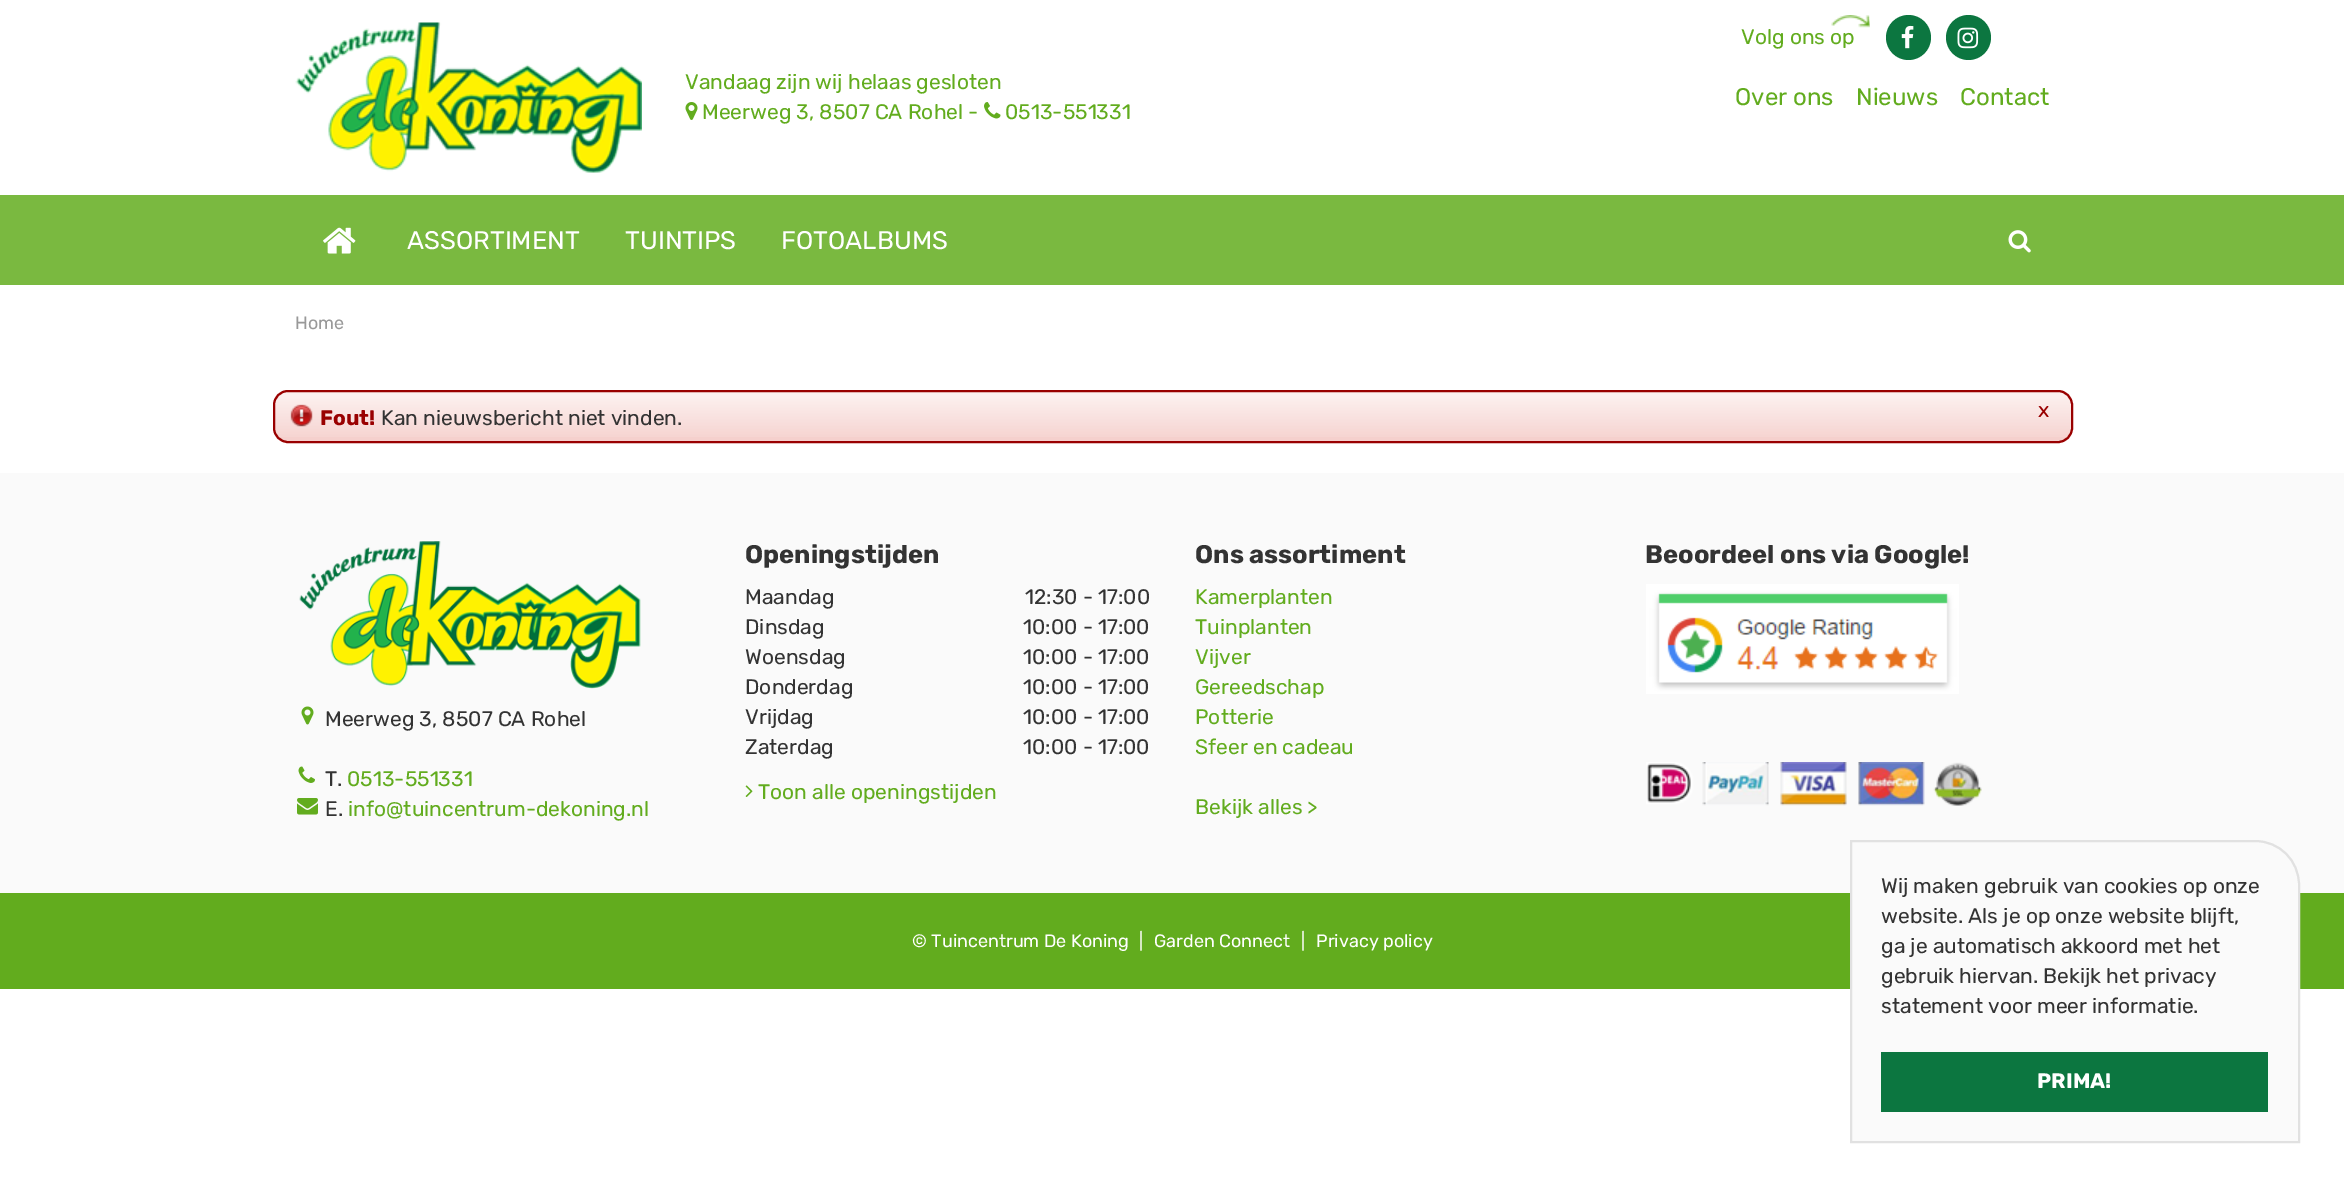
%!PS
<< /PageSize [2344 1188] >> setpagedevice
/rgb { dup -16 bitshift 255 div exch dup -8 bitshift 255 and 255 div exch 255 and 255 div setrgbcolor } def
/font { [ exch dup neg 0 0 3 -1 roll 0 0 ] selectfont } def
/text { moveto show } def
/circle { newpath 0 360 arc closepath } def
/roundrect { 5 dict begin { /r /h /w /y /x } { exch def } forall
  x r add y moveto x w add y 2 copy h add r arct x w add y h add x 1 index r arct
  x y h add x y r arct x y 2 copy exch w add exch r arct closepath end } def
/picture { 5 dict begin { /h /w /y /x /name } { exch def } forall
  gsave x y translate w h scale
  w h 8 [w 0 0 h 0 0] name (r) file false 3 colorimage grestore end } def
0 1188 translate 1 -1 scale
4 setmiterlimit
/s1 { /Rubik-Regular 18 font 16#999999 rgb } def
/s2 { /Rubik-Regular 21 font 16#62AC1E rgb } def
/s3 { /Rubik-Regular 24 font 16#62AC1E rgb } def
/s4 { /Rubik-Regular 25.5 font 16#FFFFFF rgb } def
/s5 { /Rubik-Bold 21 font 16#990000 rgb } def
/s6 { /Rubik-Regular 21 font 16#333333 rgb } def
/s7 { /Rubik-Regular 21 font 16#990000 rgb } def
/s8 { /Rubik-Bold 25.5 font 16#333333 rgb } def
/s9 { /Rubik-Regular 18 font 16#FFFFFF rgb } def
/s10 { /Rubik-Bold 21 font 16#FFFFFF rgb } def
16#FFFFFF rgb
0 0 2344 1188 rectfill
s1
(Home) 295 329 text
(pic1.raw) 295 22 347 151 picture
(pic2.raw) 1831 15 39 13 picture
s2
(Volg ons op) 1741 44 text
16#0C7640 rgb
1908.5 37.5 22.5 circle fill
(pic3.raw) 1901 25 13 24 picture
1968.5 37.5 22.5 circle fill
(pic4.raw) 1957 27 22 22 picture
s2
(Vandaag zijn wij helaas gesloten) 685 89 text
(pic5.raw) 685 102 13 18 picture
(Meerweg 3, 8507 CA Rohel -) 702 119 text
(pic6.raw) 984 102 17 17 picture
(0513-551331) 1005 119 text
s3
(Over ons) 1735 105 text
(Nieuws) 1856 105 text
(Contact) 1960 105 text
16#7AB940 rgb
0 195 2344 90 rectfill
(pic7.raw) 323 227 33 27 picture
s4
(ASSORTIMENT) 407 249 text
(TUINTIPS) 625 249 text
(FOTOALBUMS) 781 249 text
(pic8.raw) 2008 230 23 23 picture
16#F5D0CD rgb
273 390 1800 53 15 roundrect fill
(pic9.raw) 273 391 1800 46 picture
16#990000 rgb
2 setlinewidth
274 391 1798 51 14 roundrect stroke
(pic10.raw) 290 404 23 23 picture
s5
(Fout!) 320 425 text
s6
(Kan nieuwsbericht niet vinden.) 381 425 text
s7
(x) 2038 417 text
16#FAFAFA rgb
0 473 2344 420 rectfill
s8
(Openingstijden) 745 563 text
s6
(Maandag) 745 604 text
(12:30 - 17:00) 1025 604 text
(Dinsdag) 745 634 text
(10:00 - 17:00) 1023 634 text
(Woensdag) 745 664 text
(10:00 - 17:00) 1023 664 text
(Donderdag) 745 694 text
(10:00 - 17:00) 1023 694 text
(Vrijdag) 745 724 text
(10:00 - 17:00) 1023 724 text
(Zaterdag) 745 754 text
(10:00 - 17:00) 1023 754 text
(pic11.raw) 745 785 8 12 picture
s2
(Toon alle openingstijden) 758 799 text
s8
(Ons assortiment) 1195 563 text
s2
(Kamerplanten) 1195 604 text
(Tuinplanten) 1195 634 text
(Vijver) 1195 664 text
(Gereedschap) 1195 694 text
(Potterie) 1195 724 text
(Sfeer en cadeau) 1195 754 text
(Bekijk alles >) 1195 814 text
s8
(Beoordeel ons via Google!) 1645 563 text
(pic12.raw) 1646 584 313 110 picture
(pic13.raw) 299 541 342 148 picture
(pic14.raw) 301 706 13 19 picture
s6
(Meerweg 3, 8507 CA Rohel) 325 726 text
(pic15.raw) 298 766 17 17 picture
(T.) 325 786 text
s2
(0513-551331) 347 786 text
(pic16.raw) 297 798 21 17 picture
s6
(E.) 325 816 text
s2
(info@tuincentrum-dekoning.nl) 348 816 text
(pic17.raw) 1646 762 336 44 picture
0 893 2344 96 rectfill
s9
(© Tuincentrum De Koning) 912 947 text
(|) 1139 947 text
(Garden Connect) 1154 947 text
(|) 1301 947 text
(Privacy policy) 1316 947 text
16#FAFAFA rgb
1851 841 moveto 2255 841 lineto 2279.5 841 2299 860.5 2299 885 curveto 2299 1142 lineto 1851 1142 lineto closepath gsave fill grestore
16#E1E1E1 rgb
stroke
s6
(Wij maken gebruik van cookies op onze) 1881 893 text
(website. Als je op onze website blijft,) 1881 923 text
(ga je automatisch akkoord met het) 1881 953 text
(gebruik hiervan. Bekijk het privacy) 1881 983 text
(statement voor meer informatie.) 1881 1013 text
16#0C7640 rgb
1881 1052 387 60 rectfill
s10
(PRIMA!) 2037 1088 text
showpage
